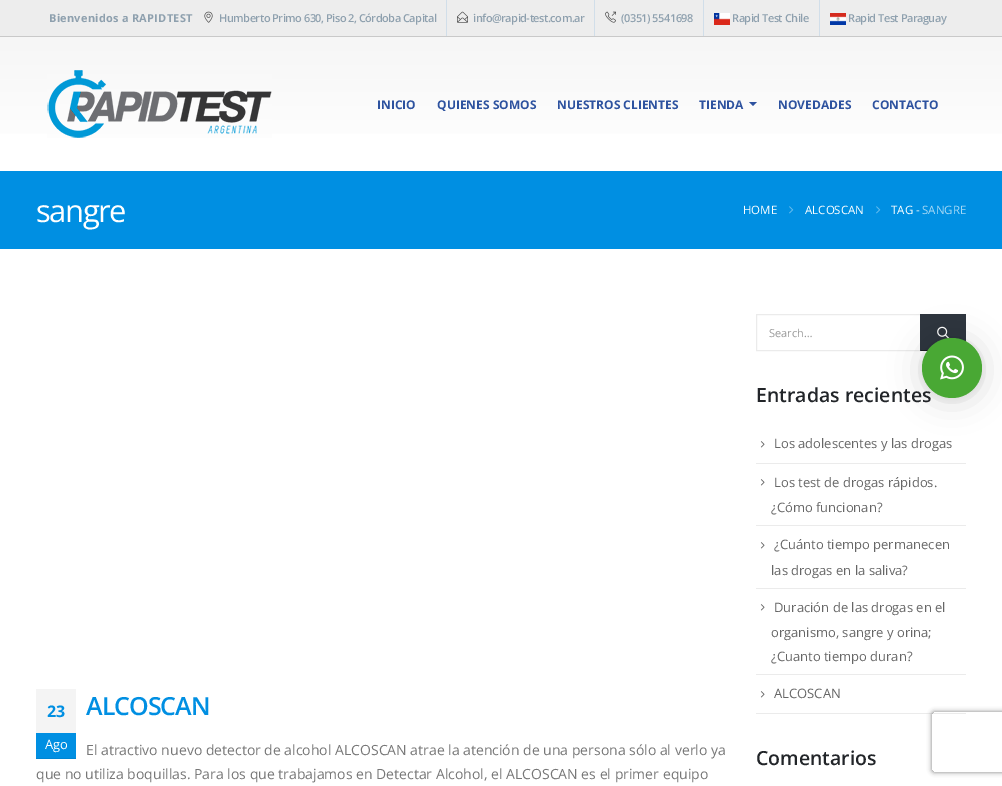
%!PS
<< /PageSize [1002 786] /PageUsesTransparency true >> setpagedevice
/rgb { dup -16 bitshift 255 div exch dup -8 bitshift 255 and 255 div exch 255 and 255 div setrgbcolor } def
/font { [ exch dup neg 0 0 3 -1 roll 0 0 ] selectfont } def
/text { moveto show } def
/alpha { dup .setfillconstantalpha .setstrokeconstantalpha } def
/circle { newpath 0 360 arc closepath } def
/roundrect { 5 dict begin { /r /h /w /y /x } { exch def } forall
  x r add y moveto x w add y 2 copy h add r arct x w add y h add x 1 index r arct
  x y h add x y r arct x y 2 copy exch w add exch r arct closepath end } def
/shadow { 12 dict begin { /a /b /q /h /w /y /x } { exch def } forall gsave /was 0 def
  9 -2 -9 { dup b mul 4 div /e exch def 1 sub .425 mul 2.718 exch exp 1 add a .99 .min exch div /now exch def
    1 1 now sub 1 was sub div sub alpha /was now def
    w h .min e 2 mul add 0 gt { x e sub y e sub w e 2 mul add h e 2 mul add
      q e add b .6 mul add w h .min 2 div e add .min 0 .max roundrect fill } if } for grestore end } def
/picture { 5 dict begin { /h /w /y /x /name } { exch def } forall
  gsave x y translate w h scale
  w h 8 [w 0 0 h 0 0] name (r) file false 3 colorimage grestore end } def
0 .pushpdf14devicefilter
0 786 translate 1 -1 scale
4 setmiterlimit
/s1 { /OpenSans-Bold 12 font 16#2D529F rgb } def
/s2 { /OpenSans-Regular 11.5 font 16#FFFFFF rgb } def
/s3 { /OpenSans-Regular 11.5 font 16#A6D8F5 rgb } def
/s4 { /OpenSans-Regular 14 font 16#777777 rgb } def
/s5 { /OpenSans-Bold 16 font 16#008FE2 rgb } def
/s6 { /OpenSans-Regular 13 font 16#FFFFFF rgb } def
/s7 { /OpenSans-Regular 11 font 16#999999 rgb } def
/s8 { /OpenSans-SemiBold 19.5 font 16#222529 rgb } def
/s9 { /OpenSans-Regular 13 font 16#666666 rgb } def
16#FFFFFF rgb
0 0 1002 786 rectfill
16#EDEDED rgb
0 0 1002 36 rectfill
16#C9C9C9 rgb
0 36 1002 1 rectfill
/OpenSans-Bold 11 font
16#8EA0AE rgb
49 22 moveto 0.25 0 (Bienvenidos a RAPIDTEST) ashow
16#D1DEE9 rgb
446 0 1 36 rectfill
(pic1.raw) 204 11 9 12 picture
/OpenSans-SemiBold 11 font
16#8EA0AE rgb
219 22 moveto -0.5 0 (Humberto Primo 630, Piso 2, Córdoba Capital) ashow
16#D1DEE9 rgb
594 0 1 36 rectfill
(pic2.raw) 457 11 11 12 picture
16#8EA0AE rgb
473 22 moveto -0.5 0 (info@rapid-test.com.ar) ashow
16#D1DEE9 rgb
703 0 1 36 rectfill
(pic3.raw) 605 11 11 12 picture
16#8EA0AE rgb
621 22 moveto -0.5 0 (\(0351\) 5541698) ashow
16#D1DEE9 rgb
819 0 1 36 rectfill
(pic4.raw) 714 13 16 12 picture
16#8EA0AE rgb
732 22 moveto -0.5 0 (Rapid Test Chile) ashow
(pic5.raw) 830 13 16 12 picture
848 22 moveto -0.5 0 (Rapid Test Paraguay) ashow
gsave 0 37 moveto 1002 37 lineto 1002 134 lineto 0 134 lineto closepath clip newpath
<< /ShadingType 2 /ColorSpace /DeviceRGB /Coords [501 37 501 171] /Extend [true true] /Function << /FunctionType 2 /Domain [0 1] /C0 [0.965 0.965 0.965] /C1 [1 1 1] /N 1 >> >> shfill grestore
(pic6.raw) 47 70 225 68 picture
s1
(INICIO) 377 109 text
(QUIENES SOMOS) 437 109 text
(NUESTROS CLIENTES) 557 109 text
(TIENDA) 699 109 text
749 102 moveto 757 102 lineto 753 106 lineto closepath fill
(NOVEDADES) 778 109 text
(CONTACTO) 872 109 text
16#008FE2 rgb
0 171 1002 78 rectfill
/OpenSans-Regular 31 font
16#FFFFFF rgb
36 222 moveto -1.5 0 (sangre) ashow
s2
(HOME) 743 214 text
(pic7.raw) 789 206 5 8 picture
(ALCOSCAN) 805 214 text
(pic7.raw) 876 206 5 8 picture
(TAG -) 891 214 text
s3
(SANGRE) 922 214 text
/OpenSans-SemiBold 25 font
16#008FE2 rgb
86 715 moveto -1 0 (ALCOSCAN) ashow
s4
(El atractivo nuevo detector de alcohol ALCOSCAN atrae la atención de una persona sólo al verlo ya) 86 755 text
(que no utiliza boquillas. Para los que trabajamos en Detectar Alcohol, el ALCOSCAN es el primer equipo) 36 779 text
16#F4F4F4 rgb
36 689 40 44 rectfill
s5
(23) 47 717 text
36 733 40 25 rectfill
16#0085D2 rgb
36 758 40 1 rectfill
s6
(Ago) 45 749 text
16#EBEBEB rgb
756.5 314.5 164 36 rectstroke
s7
(Search…) 769 337 text
16#2E353E rgb
921 314 45 36 rectfill
16#191C21 rgb
920 350 8 1 rectfill
16#2E353E rgb
920 314 1 37 rectfill
(pic8.raw) 937 326 13 13 picture
s8
(Entradas recientes) 756 402 text
16#EBEBEB rgb
756 713 210 1 rectfill
(pic9.raw) 760 441 5 7 picture
s9
(Los adolescentes y las drogas) 774 448 text
16#EBEBEB rgb
756 463 210 1 rectfill
(pic9.raw) 760 479 5 7 picture
s9
(Los test de drogas rápidos.) 774 487 text
(¿Cómo funcionan?) 771 512 text
16#EBEBEB rgb
756 525 210 1 rectfill
(pic9.raw) 760 542 5 7 picture
s9
(¿Cuánto tiempo permanecen) 774 549 text
(las drogas en la saliva?) 771 575 text
16#EBEBEB rgb
756 588 210 1 rectfill
(pic9.raw) 760 604 5 7 picture
s9
(Duración de las drogas en el) 774 612 text
(organismo, sangre y orina;) 771 637 text
(¿Cuanto tiempo duran?) 771 661 text
16#EBEBEB rgb
756 674 210 1 rectfill
(pic9.raw) 760 691 5 7 picture
s9
(ALCOSCAN) 774 698 text
s8
(Comentarios) 756 765 text
16#000000 rgb
922 340 60 60 30 16 0.16 shadow
922 339 60 60 30 3 0.06 shadow
16#49A834 rgb
952 368 30 circle fill
(pic10.raw) 940 355 24 25 picture
gsave
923 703 moveto 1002 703 lineto 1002 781 lineto 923 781 lineto closepath 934 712 moveto 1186 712 lineto 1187 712 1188 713 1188 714 curveto 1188 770 lineto 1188 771 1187 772 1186 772 curveto 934 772 lineto 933 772 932 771 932 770 curveto 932 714 lineto 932 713 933 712 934 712 curveto closepath eoclip newpath
16#808080 rgb
932 712 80 60 2 2.5 1 shadow
grestore
.poppdf14devicefilter showpage
